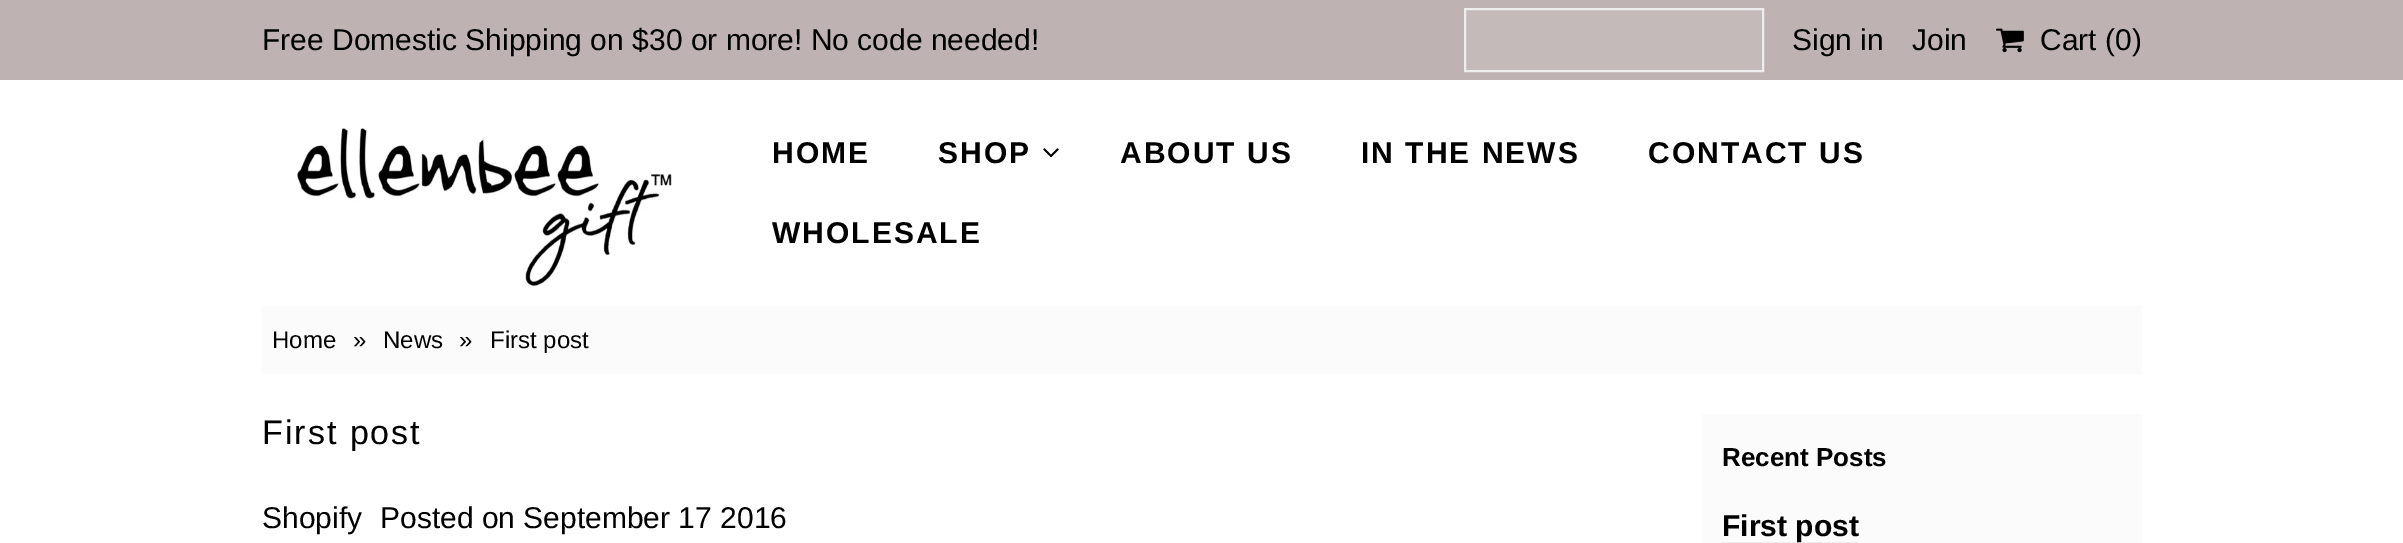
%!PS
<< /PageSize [2403 543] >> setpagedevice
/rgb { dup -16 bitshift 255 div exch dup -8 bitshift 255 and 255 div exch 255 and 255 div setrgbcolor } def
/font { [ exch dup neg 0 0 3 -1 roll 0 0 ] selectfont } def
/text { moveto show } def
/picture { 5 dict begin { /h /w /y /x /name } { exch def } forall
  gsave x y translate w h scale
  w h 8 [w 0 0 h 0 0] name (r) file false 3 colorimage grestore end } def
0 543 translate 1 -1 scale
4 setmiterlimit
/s1 { /LiberationSans-Regular 30 font 16#000000 rgb } def
/s2 { /LiberationSans-Regular 24 font 16#000000 rgb } def
/s3 { /LiberationSans-Bold 26 font 16#000000 rgb } def
/s4 { /LiberationSans-Bold 30 font 16#000000 rgb } def
16#FFFFFF rgb
0 0 2403 543 rectfill
16#BFB2B2 rgb
0 0 2403 80 rectfill
s1
(Free Domestic Shipping on $30 or more! No code needed!) 262 50 text
16#C5BABA rgb
1465 9 moveto 1763 9 lineto 1763 71 lineto 1465 71 lineto closepath gsave fill grestore
16#EEEEEE rgb
2 setlinewidth
stroke
s1
(Sign in) 1792 50 text
(Join) 1912 50 text
(pic1.raw) 1996 28 28 25 picture
(Cart \(0\)) 2040 50 text
(pic2.raw) 297 128 375 158 picture
/LiberationSans-Bold 30 font
772 163 moveto 2 0 (HOME) ashow
938 163 moveto 2 0 (SHOP) ashow
(pic3.raw) 1043 148 16 10 picture
1120 163 moveto 2 0 (ABOUT US) ashow
1361 163 moveto 2 0 (IN THE NEWS) ashow
1648 163 moveto 2 0 (CONTACT US) ashow
772 243 moveto 2 0 (WHOLESALE) ashow
16#FBFBFB rgb
262 306 1880 68 rectfill
s2
(Home) 272 348 text
(») 353 348 text
(News) 383 348 text
(») 459 348 text
(First post) 490 348 text
/LiberationSans-Regular 34 font
262 444 moveto 2 0 (First post) ashow
s1
(Shopify) 262 528 text
(Posted on September 17 2016) 380 528 text
16#FBFBFB rgb
1702 414 440 129 rectfill
s3
(Recent Posts) 1722 466 text
16#EEEEEE rgb
1722 542 136 1 rectfill
s4
(First post) 1722 536 text
showpage
